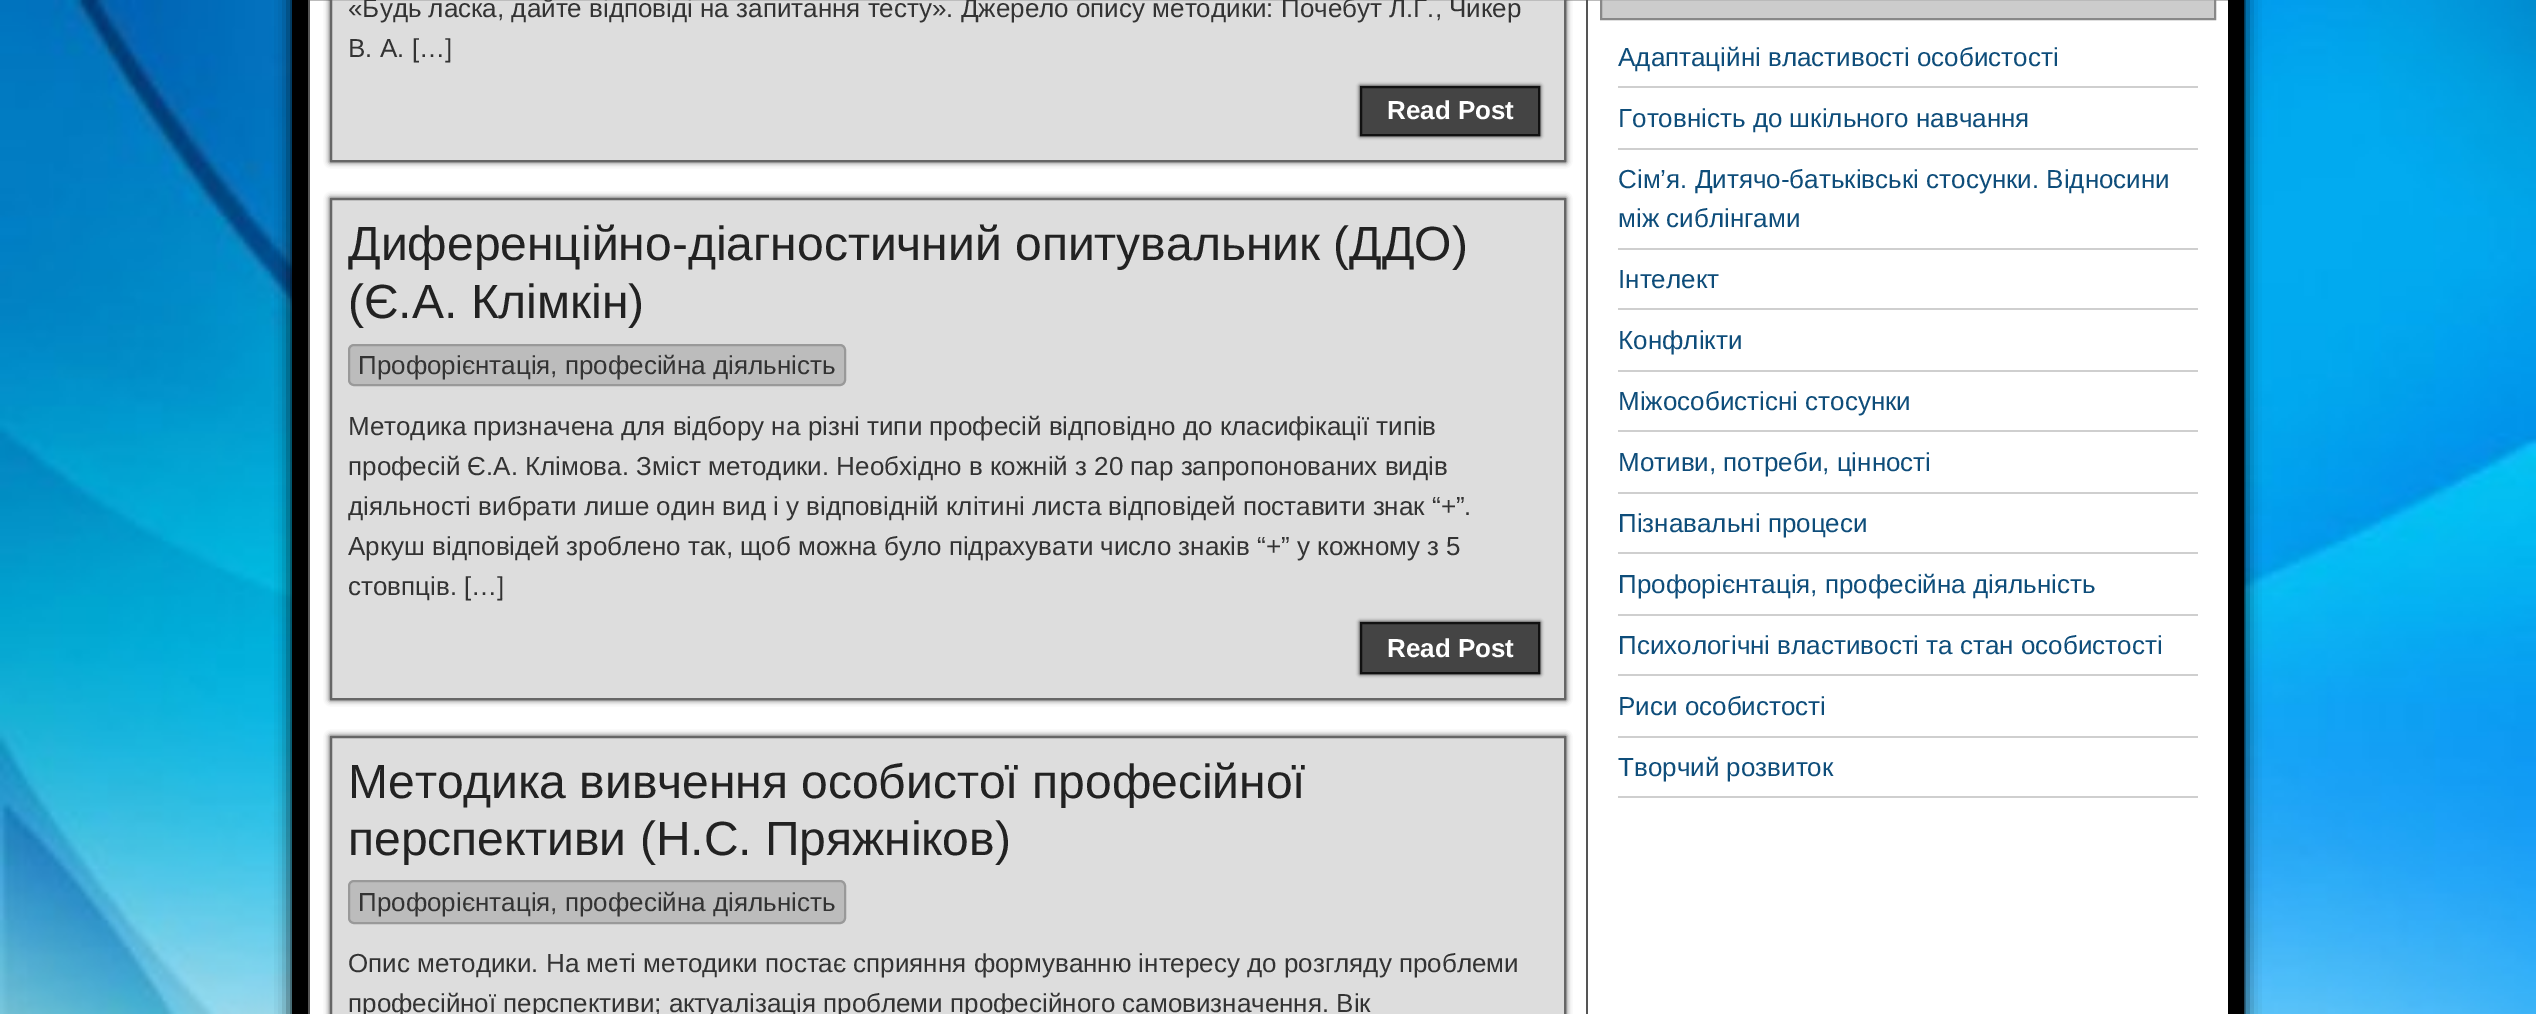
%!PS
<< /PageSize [2536 1014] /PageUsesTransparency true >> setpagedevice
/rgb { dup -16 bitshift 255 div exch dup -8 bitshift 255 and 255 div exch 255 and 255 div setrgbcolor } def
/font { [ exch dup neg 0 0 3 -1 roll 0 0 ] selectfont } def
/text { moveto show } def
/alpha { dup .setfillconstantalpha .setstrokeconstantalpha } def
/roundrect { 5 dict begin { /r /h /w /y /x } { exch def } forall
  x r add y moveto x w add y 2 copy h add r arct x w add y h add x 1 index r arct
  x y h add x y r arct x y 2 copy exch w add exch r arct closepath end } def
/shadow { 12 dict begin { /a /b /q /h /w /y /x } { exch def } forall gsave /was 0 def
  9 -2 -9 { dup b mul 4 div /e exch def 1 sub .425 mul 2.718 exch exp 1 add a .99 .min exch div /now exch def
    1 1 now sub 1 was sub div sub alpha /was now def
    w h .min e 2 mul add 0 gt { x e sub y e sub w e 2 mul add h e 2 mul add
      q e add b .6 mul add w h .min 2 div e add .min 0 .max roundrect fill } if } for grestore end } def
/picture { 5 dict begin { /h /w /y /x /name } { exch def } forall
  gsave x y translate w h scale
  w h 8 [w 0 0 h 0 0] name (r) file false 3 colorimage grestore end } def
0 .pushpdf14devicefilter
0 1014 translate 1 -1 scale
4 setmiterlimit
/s1 { /LiberationSans-Regular 26 font 16#333333 rgb } def
/s2 { /LiberationSans-Bold 26 font 16#FFFFFF rgb } def
/s3 { /LiberationSans-Regular 48 font 16#222222 rgb } def
/s4 { /LiberationSans-Regular 26 font 16#0E4D7A rgb } def
16#FFFFFF rgb
0 0 2536 1014 rectfill
(pic1.raw) 0 0 2536 1014 picture
16#000000 rgb
292 -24 1952 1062 0 8 1 shadow
16#FFFFFF rgb
310 0 1918 1014 rectfill
16#000000 rgb
16 setlinewidth
300 -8 1936 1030 rectstroke
16#555555 rgb
1586 0 2 1014 rectfill
308 0 2 1014 rectfill
16#333333 rgb
330 -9 1236 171 0 3 1 shadow
16#DDDDDD rgb
331 -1 moveto 1565 -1 lineto 1565 161 lineto 331 161 lineto closepath gsave fill grestore
16#666666 rgb
2 setlinewidth
stroke
s1
(«Будь ласка, дайте відповіді на запитання тесту». Джерело опису методики: Почебут Л.Г., Чикер) 348 17 text
(В. А. […]) 348 57 text
16#000000 rgb
1360 86 180 50 0 2 1 shadow
16#444444 rgb
1361 87 moveto 1539 87 lineto 1539 135 lineto 1361 135 lineto closepath gsave fill grestore
16#111111 rgb
stroke
s2
(Read Post) 1387 119 text
16#333333 rgb
330 198 1236 502 0 3 1 shadow
16#DDDDDD rgb
331 199 moveto 1565 199 lineto 1565 699 lineto 331 699 lineto closepath gsave fill grestore
16#666666 rgb
stroke
s3
(Диференційно-діагностичний опитувальник \(ДДО\)) 348 260 text
(\(Є.А. Клімкін\)) 348 318 text
16#BCBCBC rgb
349 345 496 40 5 roundrect gsave fill grestore
16#999999 rgb
stroke
s1
(Профорієнтація, професійна діяльність) 358 374 text
(Методика призначена для відбору на різні типи професій відповідно до класифікації типів) 348 435 text
(професій Є.А. Клімова. Зміст методики. Необхідно в кожній з 20 пар запропонованих видів) 348 475 text
(діяльності вибрати лише один вид і у відповідній клітині листа відповідей поставити знак “+”.) 348 515 text
(Аркуш відповідей зроблено так, щоб можна було підрахувати число знаків “+” у кожному з 5) 348 555 text
(стовпців. […]) 348 595 text
16#000000 rgb
1360 622 180 52 0 2 1 shadow
16#444444 rgb
1361 623 moveto 1539 623 lineto 1539 673 lineto 1361 673 lineto closepath gsave fill grestore
16#111111 rgb
stroke
s2
(Read Post) 1387 657 text
16#333333 rgb
330 736 1236 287 0 3 1 shadow
16#DDDDDD rgb
331 737 moveto 1565 737 lineto 1565 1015 lineto 331 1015 lineto closepath gsave fill grestore
16#666666 rgb
stroke
s3
(Методика вивчення особистої професійної) 348 798 text
(перспективи \(Н.С. Пряжніков\)) 348 855 text
16#BCBCBC rgb
349 881 496 42 5 roundrect gsave fill grestore
16#999999 rgb
stroke
s1
(Профорієнтація, професійна діяльність) 358 911 text
(Опис методики. На меті методики постає сприяння формуванню інтересу до розгляду проблеми) 348 972 text
(професійної перспективи; актуалізація проблеми професійного самовизначення. Вік) 348 1012 text
16#CCCCCC rgb
1601 -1 moveto 2215 -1 lineto 2215 19 lineto 1601 19 lineto closepath gsave fill grestore
16#888888 rgb
stroke
16#CFCFCF rgb
1618 86 580 2 rectfill
s4
(Адаптаційні властивості особистості) 1618 66 text
16#CFCFCF rgb
1618 148 580 2 rectfill
s4
(Готовність до шкільного навчання) 1618 127 text
16#CFCFCF rgb
1618 248 580 2 rectfill
s4
(Сім’я. Дитячо-батьківські стосунки. Відносини) 1618 188 text
(між сиблінгами) 1618 227 text
16#CFCFCF rgb
1618 308 580 2 rectfill
s4
(Інтелект) 1618 288 text
16#CFCFCF rgb
1618 370 580 2 rectfill
s4
(Конфлікти) 1618 349 text
16#CFCFCF rgb
1618 430 580 2 rectfill
s4
(Міжособистісні стосунки) 1618 410 text
16#CFCFCF rgb
1618 492 580 2 rectfill
s4
(Мотиви, потреби, цінності) 1618 471 text
16#CFCFCF rgb
1618 552 580 2 rectfill
s4
(Пізнавальні процеси) 1618 532 text
16#CFCFCF rgb
1618 614 580 2 rectfill
s4
(Профорієнтація, професійна діяльність) 1618 593 text
16#CFCFCF rgb
1618 674 580 2 rectfill
s4
(Психологічні властивості та стан особистості) 1618 654 text
16#CFCFCF rgb
1618 736 580 2 rectfill
s4
(Риси особистості) 1618 715 text
16#CFCFCF rgb
1618 796 580 2 rectfill
s4
(Творчий розвиток) 1618 776 text
.poppdf14devicefilter showpage
